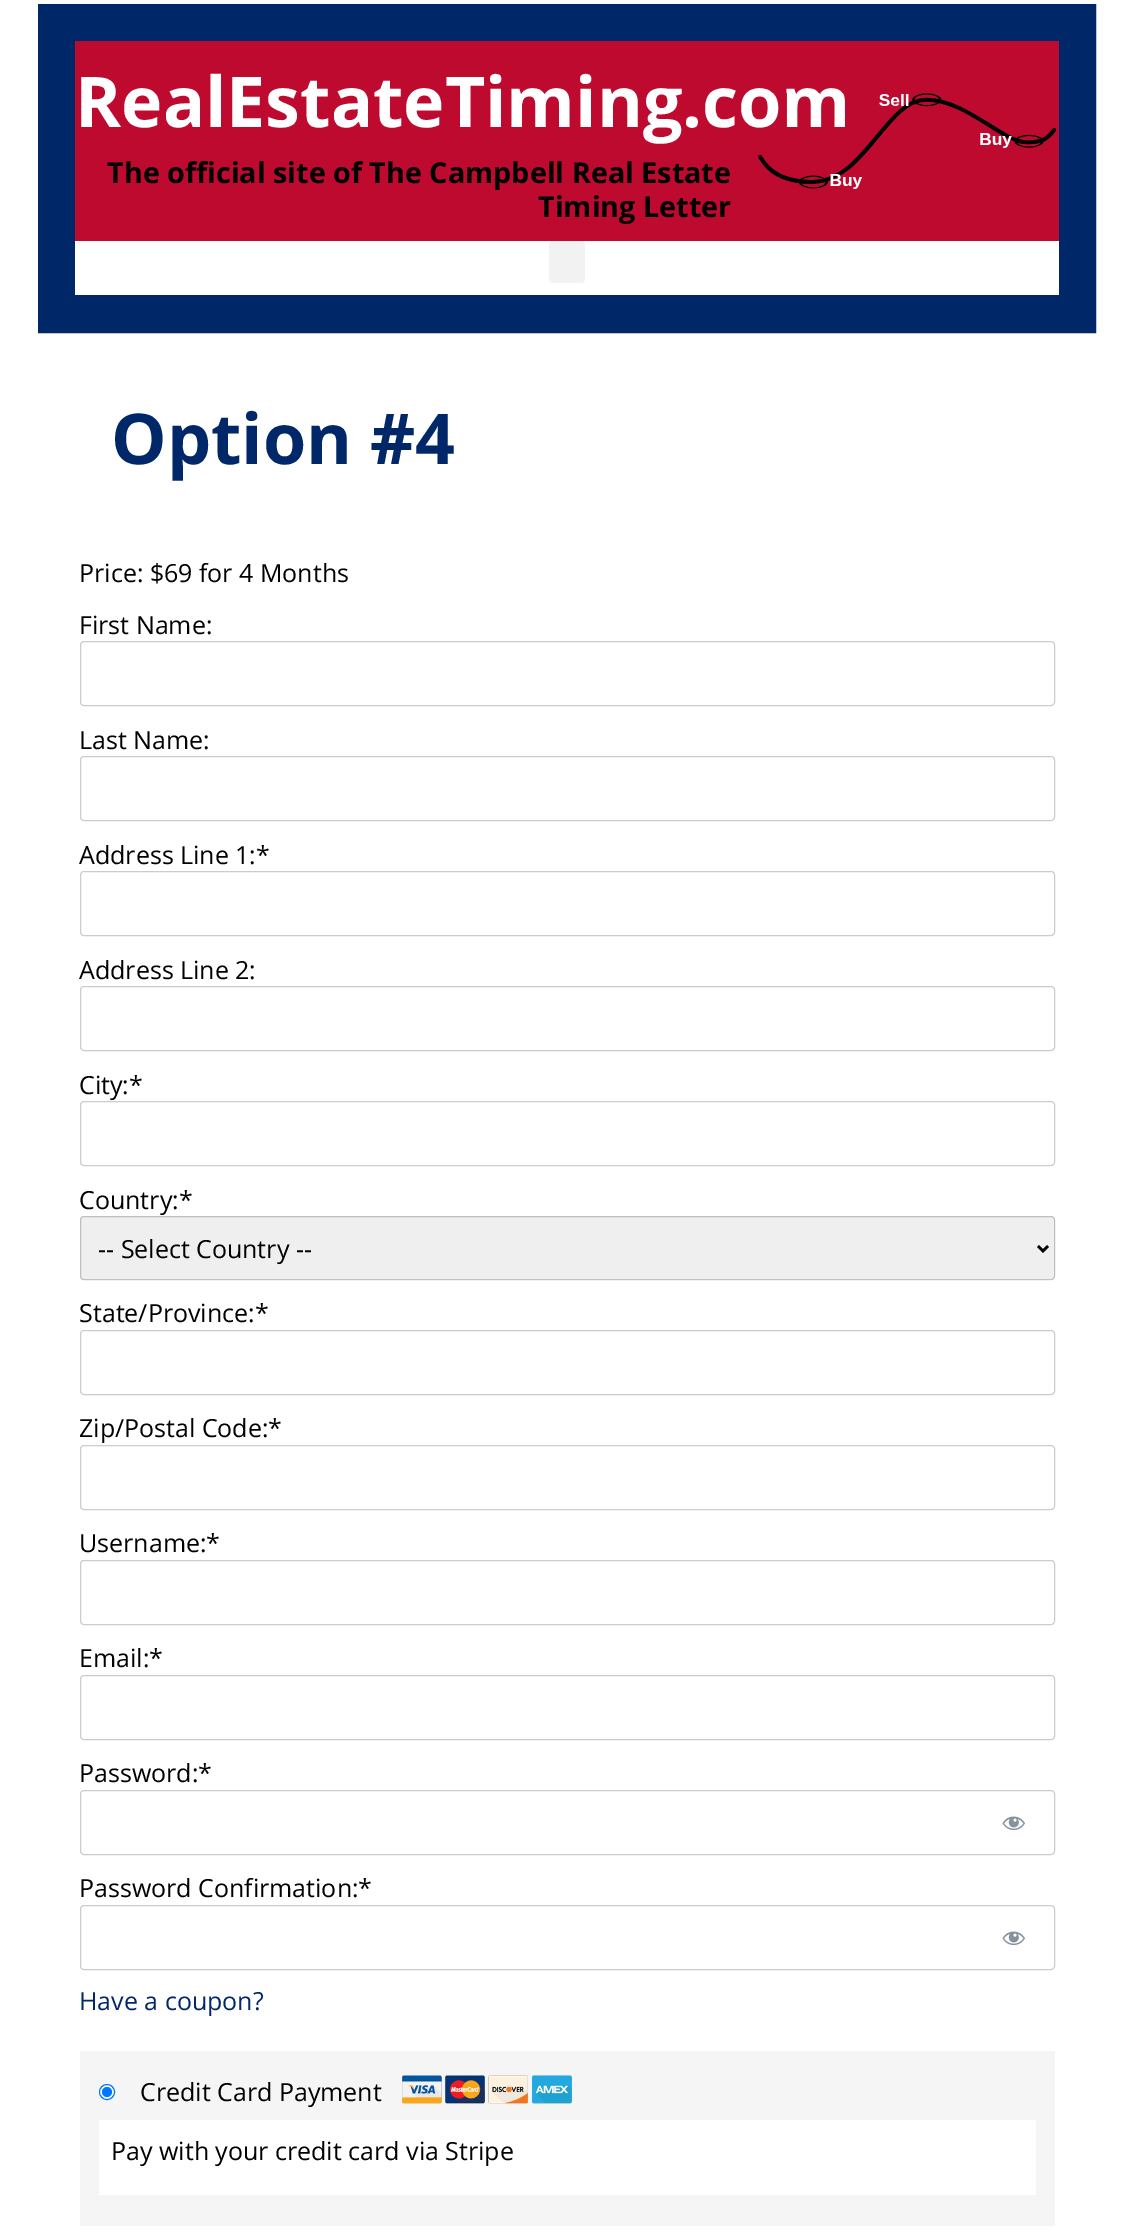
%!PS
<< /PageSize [1133 2232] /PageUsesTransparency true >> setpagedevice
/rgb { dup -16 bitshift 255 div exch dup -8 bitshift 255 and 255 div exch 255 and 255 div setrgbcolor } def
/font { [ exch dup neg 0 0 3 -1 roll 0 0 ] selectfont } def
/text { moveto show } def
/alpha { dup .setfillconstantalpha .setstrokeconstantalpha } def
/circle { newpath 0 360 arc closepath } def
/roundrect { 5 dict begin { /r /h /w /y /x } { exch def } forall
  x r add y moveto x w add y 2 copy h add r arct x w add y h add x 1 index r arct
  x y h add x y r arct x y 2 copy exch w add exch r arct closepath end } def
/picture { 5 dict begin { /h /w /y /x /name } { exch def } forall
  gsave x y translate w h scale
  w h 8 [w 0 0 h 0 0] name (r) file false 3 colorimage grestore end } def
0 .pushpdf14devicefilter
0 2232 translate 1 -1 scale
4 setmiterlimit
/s1 { /OpenSans-Bold 70 font 16#FFFFFF rgb } def
/s2 { /OpenSans-Bold 28.75 font 16#000000 rgb } def
/s3 { /OpenSans-Bold 70 font 16#002868 rgb } def
/s4 { /OpenSans-Regular 25 font 16#000000 rgb } def
/s5 { /OpenSans-Regular 25 font 16#002868 rgb } def
16#FFFFFF rgb
0 0 1133 2232 rectfill
16#002868 rgb
38 setlinewidth
57 23 1020 291 rectstroke
16#BF0A30 rgb
75 41 984 200 rectfill
s1
(RealEstateTiming.com) 75 127 text
s2
(The official site of The Campbell Real Estate) 107 183 text
(Timing Letter) 538 217 text
(pic1.raw) 758 93 299 96 picture
16#FFFFFF rgb
75 241 984 54 rectfill
16#F2F2F2 rgb
549 241 36 42 4 roundrect fill
s3
(Option #4) 111 464 text
s4
(Price: $69 for 4 Months) 79 582 text
(First Name:) 79 634 text
16#CCCCCC rgb
1 setlinewidth
80.5 641.5 974 64 3.5 roundrect stroke
s4
(Last Name:) 79 749 text
16#CCCCCC rgb
80.5 756.5 974 64 3.5 roundrect stroke
s4
(Address Line 1:*) 79 864 text
16#CCCCCC rgb
80.5 871.5 974 64 3.5 roundrect stroke
s4
(Address Line 2:) 79 979 text
16#CCCCCC rgb
80.5 986.5 974 64 3.5 roundrect stroke
s4
(City:*) 79 1094 text
16#CCCCCC rgb
80.5 1101.5 974 64 3.5 roundrect stroke
s4
(Country:*) 79 1209 text
16#EFEFEF rgb
80 1216 975 64 4 roundrect fill
0.2 alpha
16#000000 rgb
80.5 1216.5 974 63 3.5 roundrect stroke
1 alpha
2.5 setlinewidth
1038 1246 moveto 1043 1251 lineto 1048 1246 lineto stroke
(-- Select Country --) 98 1258 text
(State/Province:*) 79 1322 text
16#CCCCCC rgb
1 setlinewidth
80.5 1330.5 974 64 3.5 roundrect stroke
s4
(Zip/Postal Code:*) 79 1437 text
16#CCCCCC rgb
80.5 1445.5 974 64 3.5 roundrect stroke
s4
(Username:*) 79 1552 text
16#CCCCCC rgb
80.5 1560.5 974 64 3.5 roundrect stroke
s4
(Email:*) 79 1667 text
16#CCCCCC rgb
80.5 1675.5 974 64 3.5 roundrect stroke
s4
(Password:*) 79 1782 text
16#CCCCCC rgb
80.5 1790.5 974 64 3.5 roundrect stroke
(pic2.raw) 1002 1816 23 15 picture
s4
(Password Confirmation:*) 79 1897 text
16#CCCCCC rgb
80.5 1905.5 974 64 3.5 roundrect stroke
(pic2.raw) 1002 1931 23 15 picture
s5
(Have a coupon?) 79 2010 text
16#F5F5F5 rgb
80 2051 975 175 rectfill
16#FFFFFF rgb
107 2092 7.5 circle gsave fill grestore
16#0075FF rgb
stroke
107 2092 5 circle fill
s4
(Credit Card Payment) 140 2101 text
(pic3.raw) 402 2075 170 29 picture
16#FFFFFF rgb
99 2120 937 75 rectfill
s4
(Pay with your credit card via Stripe) 111 2160 text
.poppdf14devicefilter showpage
